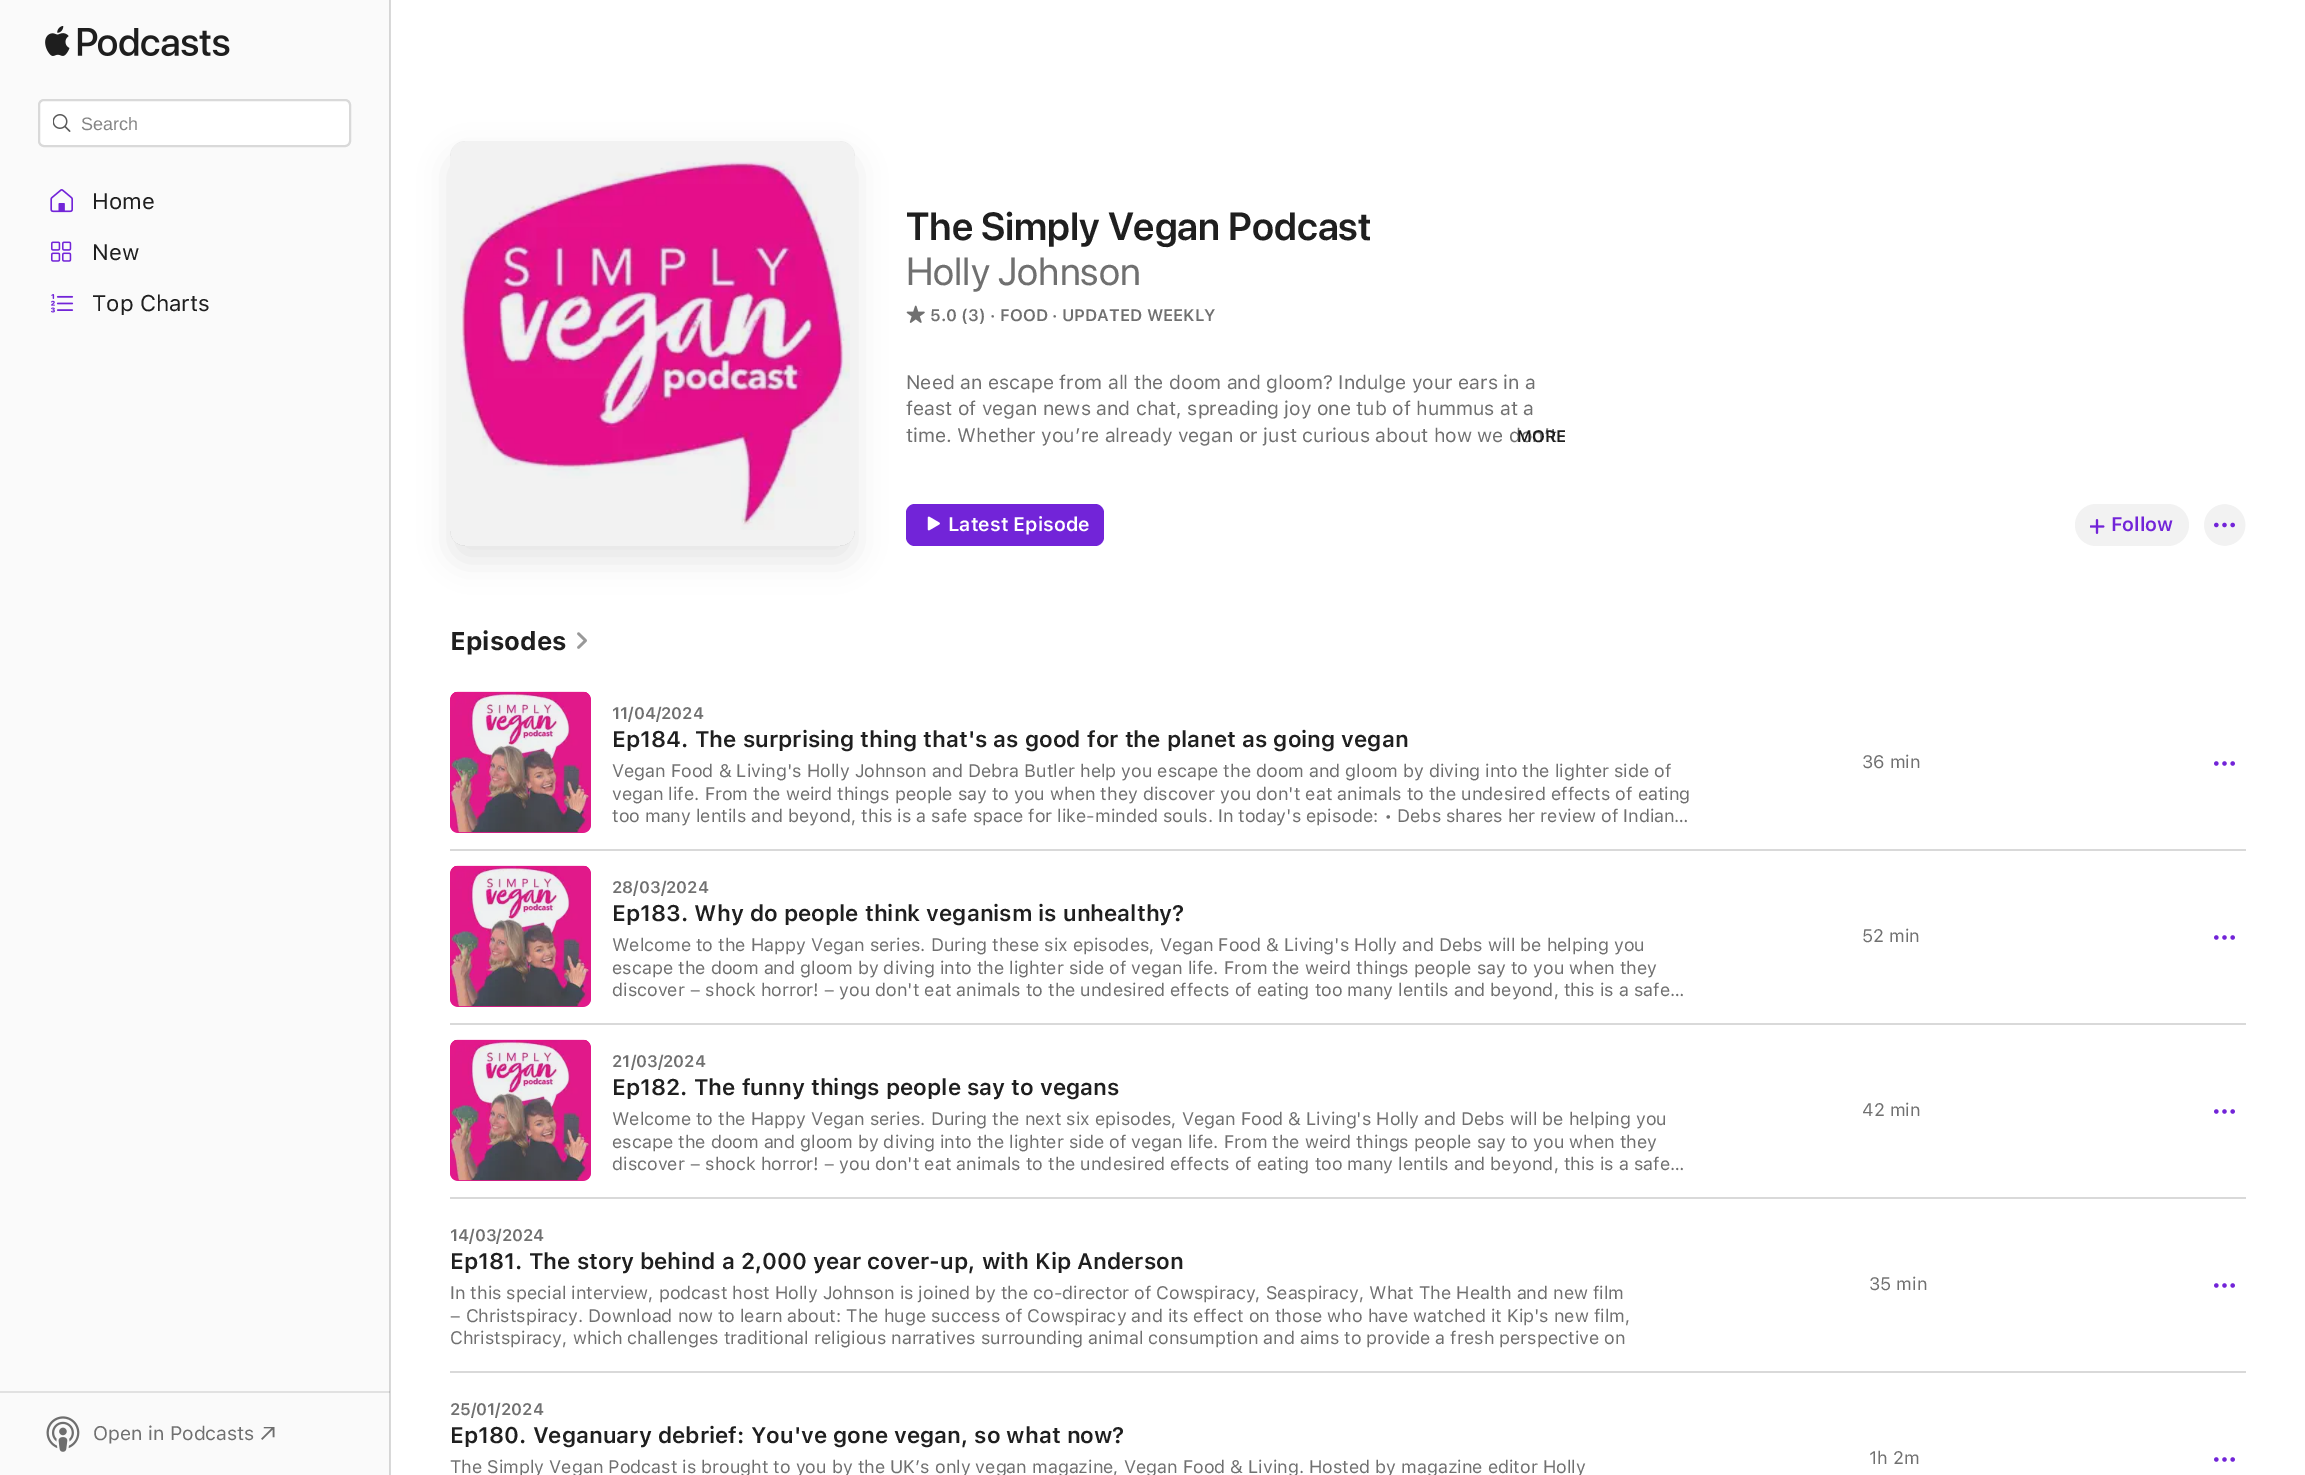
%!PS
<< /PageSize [2305 1475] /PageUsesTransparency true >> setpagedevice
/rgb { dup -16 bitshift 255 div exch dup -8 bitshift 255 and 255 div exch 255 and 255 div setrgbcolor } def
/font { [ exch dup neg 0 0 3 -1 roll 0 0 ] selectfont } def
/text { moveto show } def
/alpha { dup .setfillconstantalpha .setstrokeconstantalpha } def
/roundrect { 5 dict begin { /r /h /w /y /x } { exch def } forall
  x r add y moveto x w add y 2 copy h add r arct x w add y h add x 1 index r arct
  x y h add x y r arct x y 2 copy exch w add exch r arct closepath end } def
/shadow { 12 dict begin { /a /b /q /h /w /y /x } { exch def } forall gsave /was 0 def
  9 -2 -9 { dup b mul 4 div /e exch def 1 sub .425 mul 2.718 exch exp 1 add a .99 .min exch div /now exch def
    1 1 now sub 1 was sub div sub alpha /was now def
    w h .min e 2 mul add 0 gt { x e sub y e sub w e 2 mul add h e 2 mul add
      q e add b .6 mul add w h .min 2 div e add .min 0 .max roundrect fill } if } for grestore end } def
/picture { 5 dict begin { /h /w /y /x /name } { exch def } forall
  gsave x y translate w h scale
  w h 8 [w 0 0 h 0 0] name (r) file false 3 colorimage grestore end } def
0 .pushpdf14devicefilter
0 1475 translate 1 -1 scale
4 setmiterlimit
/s1 { /LiberationSans-Regular 18 font 16#858585 rgb } def
/s2 { /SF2-Regular 22.5 font 16#1F1F1F rgb } def
/s3 { /SF2-Regular 19.5 font 16#707070 rgb } def
/s4 { /SF2-SemiBold 39 font 16#1F1F1F rgb } def
/s5 { /SF-Regular 39 font 16#707070 rgb } def
/s6 { /SF-SemiBold 16.5 font 16#707070 rgb } def
/s7 { /SF-SemiBold 16.5 font 16#1F1F1F rgb } def
/s8 { /SF-SemiBold 19.5 font 16#FFFFFF rgb } def
/s9 { /SF-SemiBold 19.5 font 16#7224D8 rgb } def
/s10 { /SF-Bold 25.5 font 16#1F1F1F rgb } def
/s11 { /SF-SemiBold 22.5 font 16#1F1F1F rgb } def
/s12 { /SF2-Regular 18 font 16#707070 rgb } def
16#FFFFFF rgb
0 0 2305 1475 rectfill
16#D9D9D9 rgb
390 0 1 1475 rectfill
16#FAFAFA rgb
0 0 389 1475 rectfill
16#E1E1E1 rgb
0 1391 390 2 rectfill
16#D5D5D5 rgb
389 0 1 1475 rectfill
16#C0C0C0 rgb
389 1391 1 2 rectfill
(pic1.raw) 45 26 185 31 picture
16#FFFFFF rgb
39 100 311 46 5 roundrect gsave fill grestore
16#D9D9D9 rgb
2 setlinewidth
stroke
(pic2.raw) 53 114 18 18 picture
s1
(Search) 81 130 text
(pic3.raw) 50 189 23 24 picture
s2
(Home) 92 209 text
(pic4.raw) 51 241 21 21 picture
(New) 92 260 text
(pic5.raw) 51 294 23 19 picture
(Top Charts) 92 311 text
(pic6.raw) 46 1416 34 36 picture
s3
(Open in Podcasts) 93 1440 text
(pic7.raw) 261 1427 14 13 picture
gsave
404 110 moveto 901 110 lineto 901 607 lineto 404 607 lineto closepath 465 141 moveto 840 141 lineto 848.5 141 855 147.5 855 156 curveto 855 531 lineto 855 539.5 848.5 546 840 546 curveto 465 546 lineto 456.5 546 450 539.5 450 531 curveto 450 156 lineto 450 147.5 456.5 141 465 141 curveto closepath eoclip newpath
16#000000 rgb
450 156 405 405 15 15 0.1 shadow
grestore
(pic8.raw) 460 161 390 369 picture
0.1 alpha
16#808080 rgb
465 141 moveto 840 141 lineto 848 141 855 148 855 156 curveto 855 531 lineto 855 539 848 546 840 546 curveto 465 546 lineto 457 546 450 539 450 531 curveto 450 156 lineto 450 148 457 141 465 141 curveto closepath fill
1 alpha
s4
(The Simply Vegan Podcast) 906 240 text
s5
(Holly Johnson) 906 285 text
(pic9.raw) 906 305 19 18 picture
s6
(5.0 \(3\) · FOOD · UPDATED WEEKLY) 930 321 text
s3
(Need an escape from all the doom and gloom? Indulge your ears in a) 906 389 text
(feast of vegan news and chat, spreading joy one tub of hummus at a) 906 415 text
(time. Whether you’re already vegan or just curious about how we don’t) 906 442 text
s7
(MORE) 1517 442 text
16#7224D8 rgb
906 504 198 42 9 roundrect fill
(pic10.raw) 927 516 13 15 picture
s8
(Latest Episode) 948 531 text
16#F2F2F2 rgb
2075 504 114 42 21 roundrect fill
(pic11.raw) 2090 519 15 15 picture
s9
(Follow) 2111 531 text
(pic12.raw) 2204 504 42 42 picture
s10
(Episodes) 450 650 text
(pic13.raw) 577 632 10 17 picture
16#D9D9D9 rgb
450 849 1796 2 rectfill
16#EC0D8A rgb
450 692 141 141 8 roundrect fill
(pic14.raw) 450 691 141 142 picture
0.1 alpha
16#808080 rgb
458 692 moveto 583 692 lineto 587 692 591 696 591 700 curveto 591 825 lineto 591 829 587 833 583 833 curveto 458 833 lineto 454 833 450 829 450 825 curveto 450 700 lineto 450 696 454 692 458 692 curveto closepath fill
1 alpha
s6
(11/04/2024) 612 719 text
s11
(Ep184. The surprising thing that's as good for the planet as going vegan) 612 747 text
s12
(Vegan Food & Living's Holly Johnson and Debra Butler help you escape the doom and gloom by diving into the lighter side of) 612 777 text
(vegan life. From the weird things people say to you when they discover you don't eat animals to the undesired effects of eating) 612 800 text
(too many lentils and beyond, this is a safe space for like-minded souls. In today's episode: • Debs shares her review of Indian…) 612 822 text
(36 min) 1862 768 text
(pic15.raw) 2214 761 21 5 picture
16#D9D9D9 rgb
450 1023 1796 2 rectfill
16#EC0D8A rgb
450 866 141 141 8 roundrect fill
(pic14.raw) 450 865 141 142 picture
0.1 alpha
16#808080 rgb
458 866 moveto 583 866 lineto 587 866 591 870 591 874 curveto 591 999 lineto 591 1003 587 1007 583 1007 curveto 458 1007 lineto 454 1007 450 1003 450 999 curveto 450 874 lineto 450 870 454 866 458 866 curveto closepath fill
1 alpha
s6
(28/03/2024) 612 893 text
s11
(Ep183. Why do people think veganism is unhealthy?) 612 921 text
s12
(Welcome to the Happy Vegan series. During these six episodes, Vegan Food & Living's Holly and Debs will be helping you) 612 951 text
(escape the doom and gloom by diving into the lighter side of vegan life. From the weird things people say to you when they) 612 974 text
(discover – shock horror! – you don't eat animals to the undesired effects of eating too many lentils and beyond, this is a safe…) 612 996 text
(52 min) 1862 942 text
(pic15.raw) 2214 935 21 5 picture
16#D9D9D9 rgb
450 1197 1796 2 rectfill
16#EC0D8A rgb
450 1040 141 141 8 roundrect fill
(pic14.raw) 450 1039 141 142 picture
0.1 alpha
16#808080 rgb
458 1040 moveto 583 1040 lineto 587 1040 591 1044 591 1048 curveto 591 1173 lineto 591 1177 587 1181 583 1181 curveto 458 1181 lineto 454 1181 450 1177 450 1173 curveto 450 1048 lineto 450 1044 454 1040 458 1040 curveto closepath fill
1 alpha
s6
(21/03/2024) 612 1067 text
s11
(Ep182. The funny things people say to vegans) 612 1095 text
s12
(Welcome to the Happy Vegan series. During the next six episodes, Vegan Food & Living's Holly and Debs will be helping you) 612 1125 text
(escape the doom and gloom by diving into the lighter side of vegan life. From the weird things people say to you when they) 612 1148 text
(discover – shock horror! – you don't eat animals to the undesired effects of eating too many lentils and beyond, this is a safe…) 612 1170 text
(42 min) 1862 1116 text
(pic15.raw) 2214 1109 21 5 picture
16#D9D9D9 rgb
450 1371 1796 2 rectfill
s6
(14/03/2024) 450 1241 text
s11
(Ep181. The story behind a 2,000 year cover-up, with Kip Anderson) 450 1269 text
s12
(In this special interview, podcast host Holly Johnson is joined by the co-director of Cowspiracy, Seaspiracy, What The Health and new film) 450 1299 text
(– Christspiracy. Download now to learn about: The huge success of Cowspiracy and its effect on those who have watched it Kip's new film,) 450 1322 text
(Christspiracy, which challenges traditional religious narratives surrounding animal consumption and aims to provide a fresh perspective on) 450 1344 text
(35 min) 1869 1290 text
(pic15.raw) 2214 1283 21 5 picture
s6
(25/01/2024) 450 1415 text
s11
(Ep180. Veganuary debrief: You've gone vegan, so what now?) 450 1443 text
s12
(The Simply Vegan Podcast is brought to you by the UK’s only vegan magazine, Vegan Food & Living. Hosted by magazine editor Holly) 450 1473 text
(1h 2m) 1869 1464 text
(pic15.raw) 2214 1457 21 5 picture
.poppdf14devicefilter showpage
